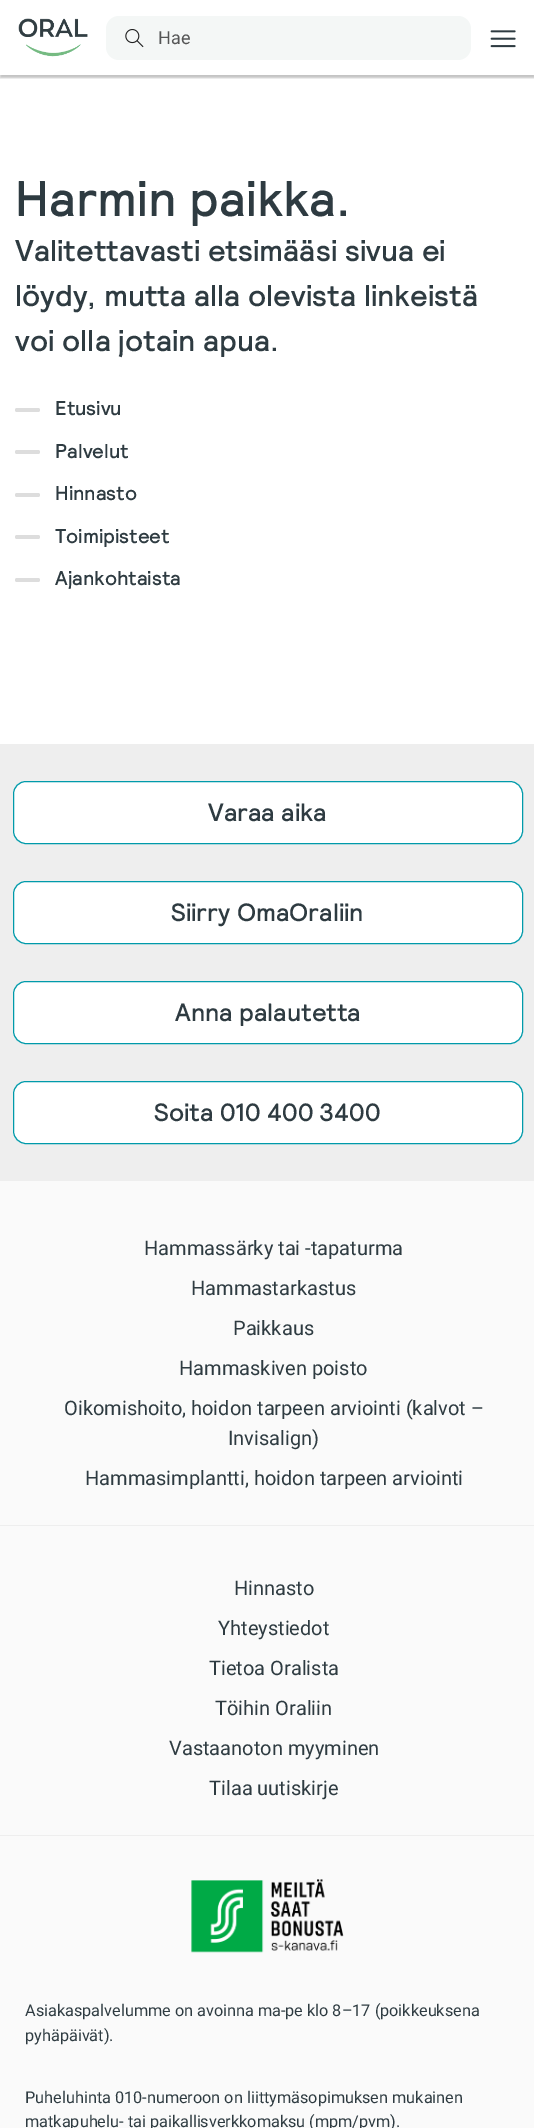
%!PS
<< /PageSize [534 2128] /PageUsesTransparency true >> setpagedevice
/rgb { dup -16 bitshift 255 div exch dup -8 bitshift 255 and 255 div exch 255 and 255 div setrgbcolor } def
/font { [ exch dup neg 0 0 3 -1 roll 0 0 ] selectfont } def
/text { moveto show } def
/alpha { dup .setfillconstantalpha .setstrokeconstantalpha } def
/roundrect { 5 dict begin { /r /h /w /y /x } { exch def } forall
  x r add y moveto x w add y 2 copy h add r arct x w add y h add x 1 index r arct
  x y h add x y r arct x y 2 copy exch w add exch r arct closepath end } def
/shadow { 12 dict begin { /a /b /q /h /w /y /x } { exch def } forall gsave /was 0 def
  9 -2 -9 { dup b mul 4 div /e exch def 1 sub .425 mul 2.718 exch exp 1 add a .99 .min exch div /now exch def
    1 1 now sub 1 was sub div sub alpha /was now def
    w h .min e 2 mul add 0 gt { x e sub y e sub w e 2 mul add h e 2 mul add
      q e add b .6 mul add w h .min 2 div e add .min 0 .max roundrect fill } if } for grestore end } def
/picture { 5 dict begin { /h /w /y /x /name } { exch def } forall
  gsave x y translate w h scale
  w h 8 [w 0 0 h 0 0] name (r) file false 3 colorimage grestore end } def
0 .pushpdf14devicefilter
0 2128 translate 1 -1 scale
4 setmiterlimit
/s1 { /Roboto-Regular 18 font 16#555656 rgb } def
/s2 { /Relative-Medium 50 font 16#2E3B41 rgb } def
/s3 { /Relative-Medium 30 font 16#2E3B41 rgb } def
/s4 { /Relative-Medium 20 font 16#2E3B41 rgb } def
/s5 { /Relative-Medium 25 font 16#2E3B41 rgb } def
/s6 { /Roboto-Regular 20 font 16#2E3B41 rgb } def
/s7 { /Roboto-Regular 16.25 font 16#2E3B41 rgb } def
16#FFFFFF rgb
0 0 534 2128 rectfill
gsave
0 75 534 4 rectclip
16#000000 rgb
0 3 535 75 0 1 0.24 shadow
grestore
(pic1.raw) 18 18 70 39 picture
16#F4F7F6 rgb
106 16 365 44 13 roundrect fill
(pic2.raw) 125 29 19 19 picture
s1
(Hae) 158 44 text
(pic3.raw) 490 30 26 18 picture
s2
(Harmin paikka.) 15 216 text
s3
(Valitettavasti etsimääsi sivua ei) 15 261 text
(löydy, mutta alla olevista linkeistä) 15 306 text
(voi olla jotain apua.) 15 351 text
16#DDDDDD rgb
15 408 25 4 2 roundrect fill
s4
(Etusivu) 55 415 text
16#DDDDDD rgb
15 450 25 4 2 roundrect fill
s4
(Palvelut) 55 458 text
16#DDDDDD rgb
15 493 25 4 2 roundrect fill
s4
(Hinnasto) 55 500 text
16#DDDDDD rgb
15 535 25 4 2 roundrect fill
s4
(Toimipisteet) 55 543 text
16#DDDDDD rgb
15 578 25 4 2 roundrect fill
s4
(Ajankohtaista) 55 585 text
16#EEEEEE rgb
0 744 534 437 rectfill
16#FFFFFF rgb
13.5 781.5 509 62 12.5 roundrect gsave fill grestore
16#009AAA rgb
stroke
s5
(Varaa aika) 208 821 text
16#FFFFFF rgb
13.5 881.5 509 62 12.5 roundrect gsave fill grestore
16#009AAA rgb
stroke
s5
(Siirry OmaOraliin) 171 921 text
16#FFFFFF rgb
13.5 981.5 509 62 12.5 roundrect gsave fill grestore
16#009AAA rgb
stroke
s5
(Anna palautetta) 175 1021 text
16#FFFFFF rgb
13.5 1081.5 509 62 12.5 roundrect gsave fill grestore
16#009AAA rgb
stroke
s5
(Soita 010 400 3400) 154 1121 text
16#FAFAFA rgb
0 1181 534 947 rectfill
16#EEEEEE rgb
0 1525 534 1 rectfill
s6
(Hammassärky tai -tapaturma) 144 1255 text
(Hammastarkastus) 191 1295 text
(Paikkaus) 233 1335 text
(Hammaskiven poisto) 179 1375 text
(Oikomishoito, hoidon tarpeen arviointi \(kalvot –) 64 1415 text
(Invisalign\)) 228 1445 text
(Hammasimplantti, hoidon tarpeen arviointi) 85 1485 text
16#EEEEEE rgb
0 1835 534 1 rectfill
s6
(Hinnasto) 234 1595 text
(Yhteystiedot) 218 1635 text
(Tietoa Oralista) 209 1675 text
(Töihin Oraliin) 215 1715 text
(Vastaanoton myyminen) 169 1755 text
(Tilaa uutiskirje) 209 1795 text
(pic4.raw) 191 1879 153 74 picture
s7
(Asiakaspalvelumme on avoinna ma-pe klo 8–17 \(poikkeuksena) 25 2016 text
(pyhäpäivät\).) 25 2041 text
(Puheluhinta 010-numeroon on liittymäsopimuksen mukainen) 25 2103 text
(matkapuhelu- tai paikallisverkkomaksu \(mpm/pvm\).) 25 2127 text
.poppdf14devicefilter showpage
